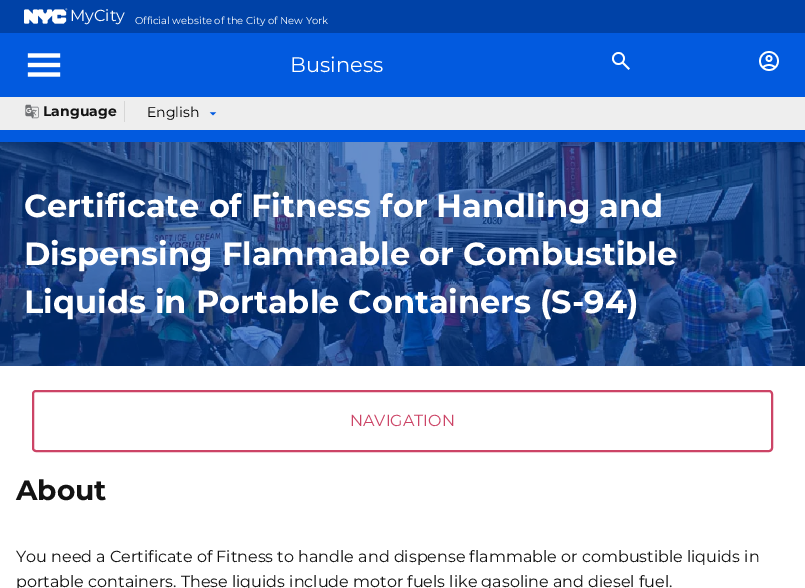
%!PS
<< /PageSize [805 588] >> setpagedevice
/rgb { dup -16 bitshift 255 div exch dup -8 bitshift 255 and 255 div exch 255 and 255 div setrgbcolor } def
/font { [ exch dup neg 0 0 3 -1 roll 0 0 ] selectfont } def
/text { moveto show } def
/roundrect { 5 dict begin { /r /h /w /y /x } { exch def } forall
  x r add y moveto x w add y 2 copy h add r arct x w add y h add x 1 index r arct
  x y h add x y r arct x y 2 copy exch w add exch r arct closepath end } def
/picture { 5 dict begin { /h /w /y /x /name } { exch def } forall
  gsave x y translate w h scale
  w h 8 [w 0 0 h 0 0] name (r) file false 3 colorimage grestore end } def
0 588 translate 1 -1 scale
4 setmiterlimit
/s1 { /Montserrat-Regular 16 font 16#FFFFFF rgb } def
/s2 { /Montserrat-Regular 10 font 16#FFFFFF rgb } def
/s3 { /Montserrat-Regular 21 font 16#FFFFFF rgb } def
/s4 { /Montserrat-Bold 14 font 16#131313 rgb } def
/s5 { /Montserrat-Regular 14 font 16#000000 rgb } def
/s6 { /Montserrat-Bold 32 font 16#FFFFFF rgb } def
/s7 { /Montserrat-Regular 16 font 16#CC4466 rgb } def
/s8 { /Montserrat-Bold 28 font 16#131313 rgb } def
/s9 { /Montserrat-Regular 16 font 16#131313 rgb } def
16#FFFFFF rgb
0 0 805 588 rectfill
16#025ADF rgb
0 33 805 109 rectfill
16#0042A7 rgb
0 0 805 33 rectfill
(pic1.raw) 24 8 44 16 picture
s1
(MyCity) 70 21 text
s2
(Official website of the City of New York) 135 24 text
(pic2.raw) 27 53 34 24 picture
s3
(Business) 290 72 text
(pic3.raw) 612 52 18 18 picture
(pic4.raw) 759 51 20 20 picture
16#EEEEEE rgb
0 97 805 33 rectfill
16#D6D6D6 rgb
124 101 1 21 rectfill
(pic5.raw) 25 104 14 15 picture
s4
(Language) 43 116 text
s5
(English) 147 117 text
(pic6.raw) 209 112 8 4 picture
(pic7.raw) 0 142 805 224 picture
s6
(Certificate of Fitness for Handling and) 24 217 text
(Dispensing Flammable or Combustible) 24 265 text
(Liquids in Portable Containers \(S-94\)) 24 313 text
16#CC4466 rgb
2 setlinewidth
33 391 739 60 3 roundrect stroke
s7
(NAVIGATION) 350 426 text
s8
(About) 16 500 text
s9
(You need a Certificate of Fitness to handle and dispense flammable or combustible liquids in) 16 562 text
(portable containers. These liquids include motor fuels like gasoline and diesel fuel.) 16 587 text
showpage
